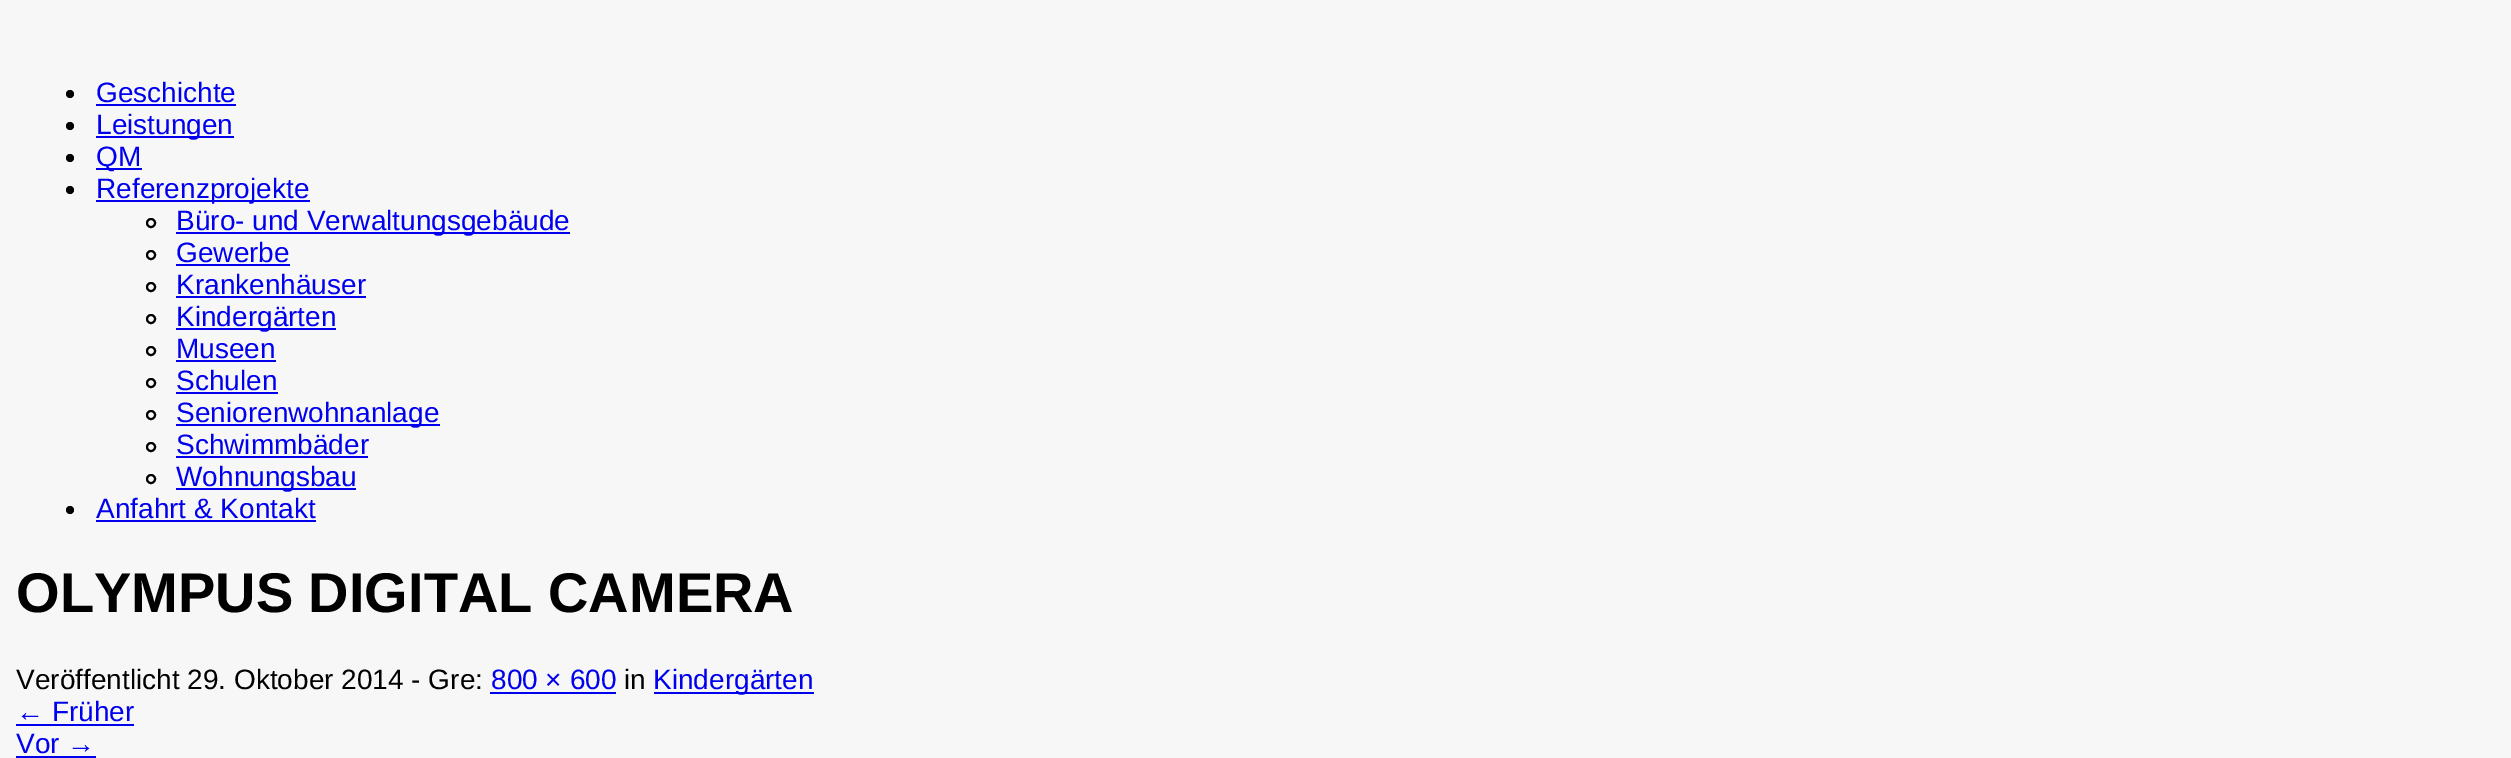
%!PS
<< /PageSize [2511 758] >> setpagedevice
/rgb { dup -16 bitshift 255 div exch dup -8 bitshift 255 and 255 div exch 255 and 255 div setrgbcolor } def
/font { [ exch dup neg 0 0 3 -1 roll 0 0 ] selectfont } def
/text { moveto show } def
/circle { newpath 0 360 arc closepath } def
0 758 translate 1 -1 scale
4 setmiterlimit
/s1 { /LiberationSans-Regular 28 font 16#0000EE rgb } def
/s2 { /LiberationSans-Bold 56 font 16#000000 rgb } def
/s3 { /LiberationSans-Regular 28 font 16#000000 rgb } def
16#F7F7F7 rgb
0 0 2511 758 rectfill
16#000000 rgb
70 94 4 circle fill
s1
(Geschichte) 96 102 text
96 104 140 2 rectfill
16#000000 rgb
70 126 4 circle fill
16#0000EE rgb
96 136 138 2 rectfill
(Leistungen) 96 134 text
16#000000 rgb
70 158 4 circle fill
16#0000EE rgb
96 168 46 2 rectfill
(QM) 96 166 text
16#000000 rgb
70 190 4 circle fill
16#0000EE rgb
96 200 214 2 rectfill
(Referenzprojekte) 96 198 text
16#000000 rgb
2 setlinewidth
151 223 4 circle stroke
16#0000EE rgb
176 232 394 2 rectfill
(Büro- und Verwaltungsgebäude) 176 230 text
16#000000 rgb
151 255 4 circle stroke
s1
(Gewerbe) 176 262 text
176 264 114 2 rectfill
16#000000 rgb
151 287 4 circle stroke
s1
(Krankenhäuser) 176 294 text
176 296 190 2 rectfill
16#000000 rgb
151 319 4 circle stroke
16#0000EE rgb
176 328 160 2 rectfill
(Kindergärten) 176 326 text
16#000000 rgb
151 351 4 circle stroke
s1
(Museen) 176 358 text
176 360 100 2 rectfill
16#000000 rgb
151 383 4 circle stroke
s1
(Schulen) 176 390 text
176 392 102 2 rectfill
16#000000 rgb
151 415 4 circle stroke
16#0000EE rgb
176 424 264 2 rectfill
(Seniorenwohnanlage) 176 422 text
16#000000 rgb
151 447 4 circle stroke
s1
(Schwimmbäder) 176 454 text
176 456 192 2 rectfill
16#000000 rgb
151 479 4 circle stroke
16#0000EE rgb
176 488 180 2 rectfill
(Wohnungsbau) 176 486 text
16#000000 rgb
70 510 4 circle fill
s1
(Anfahrt & Kontakt) 96 518 text
96 520 220 2 rectfill
s2
(OLYMPUS DIGITAL CAMERA) 16 612 text
s3
(Veröffentlicht 29. Oktober 2014 - Gre:) 16 689 text
s1
(800 × 600) 491 689 text
490 692 126 2 rectfill
s3
(in) 624 689 text
16#0000EE rgb
654 692 160 2 rectfill
(Kindergärten) 653 689 text
(← Früher) 16 721 text
16 724 118 2 rectfill
(Vor →) 16 753 text
16 756 80 2 rectfill
showpage
